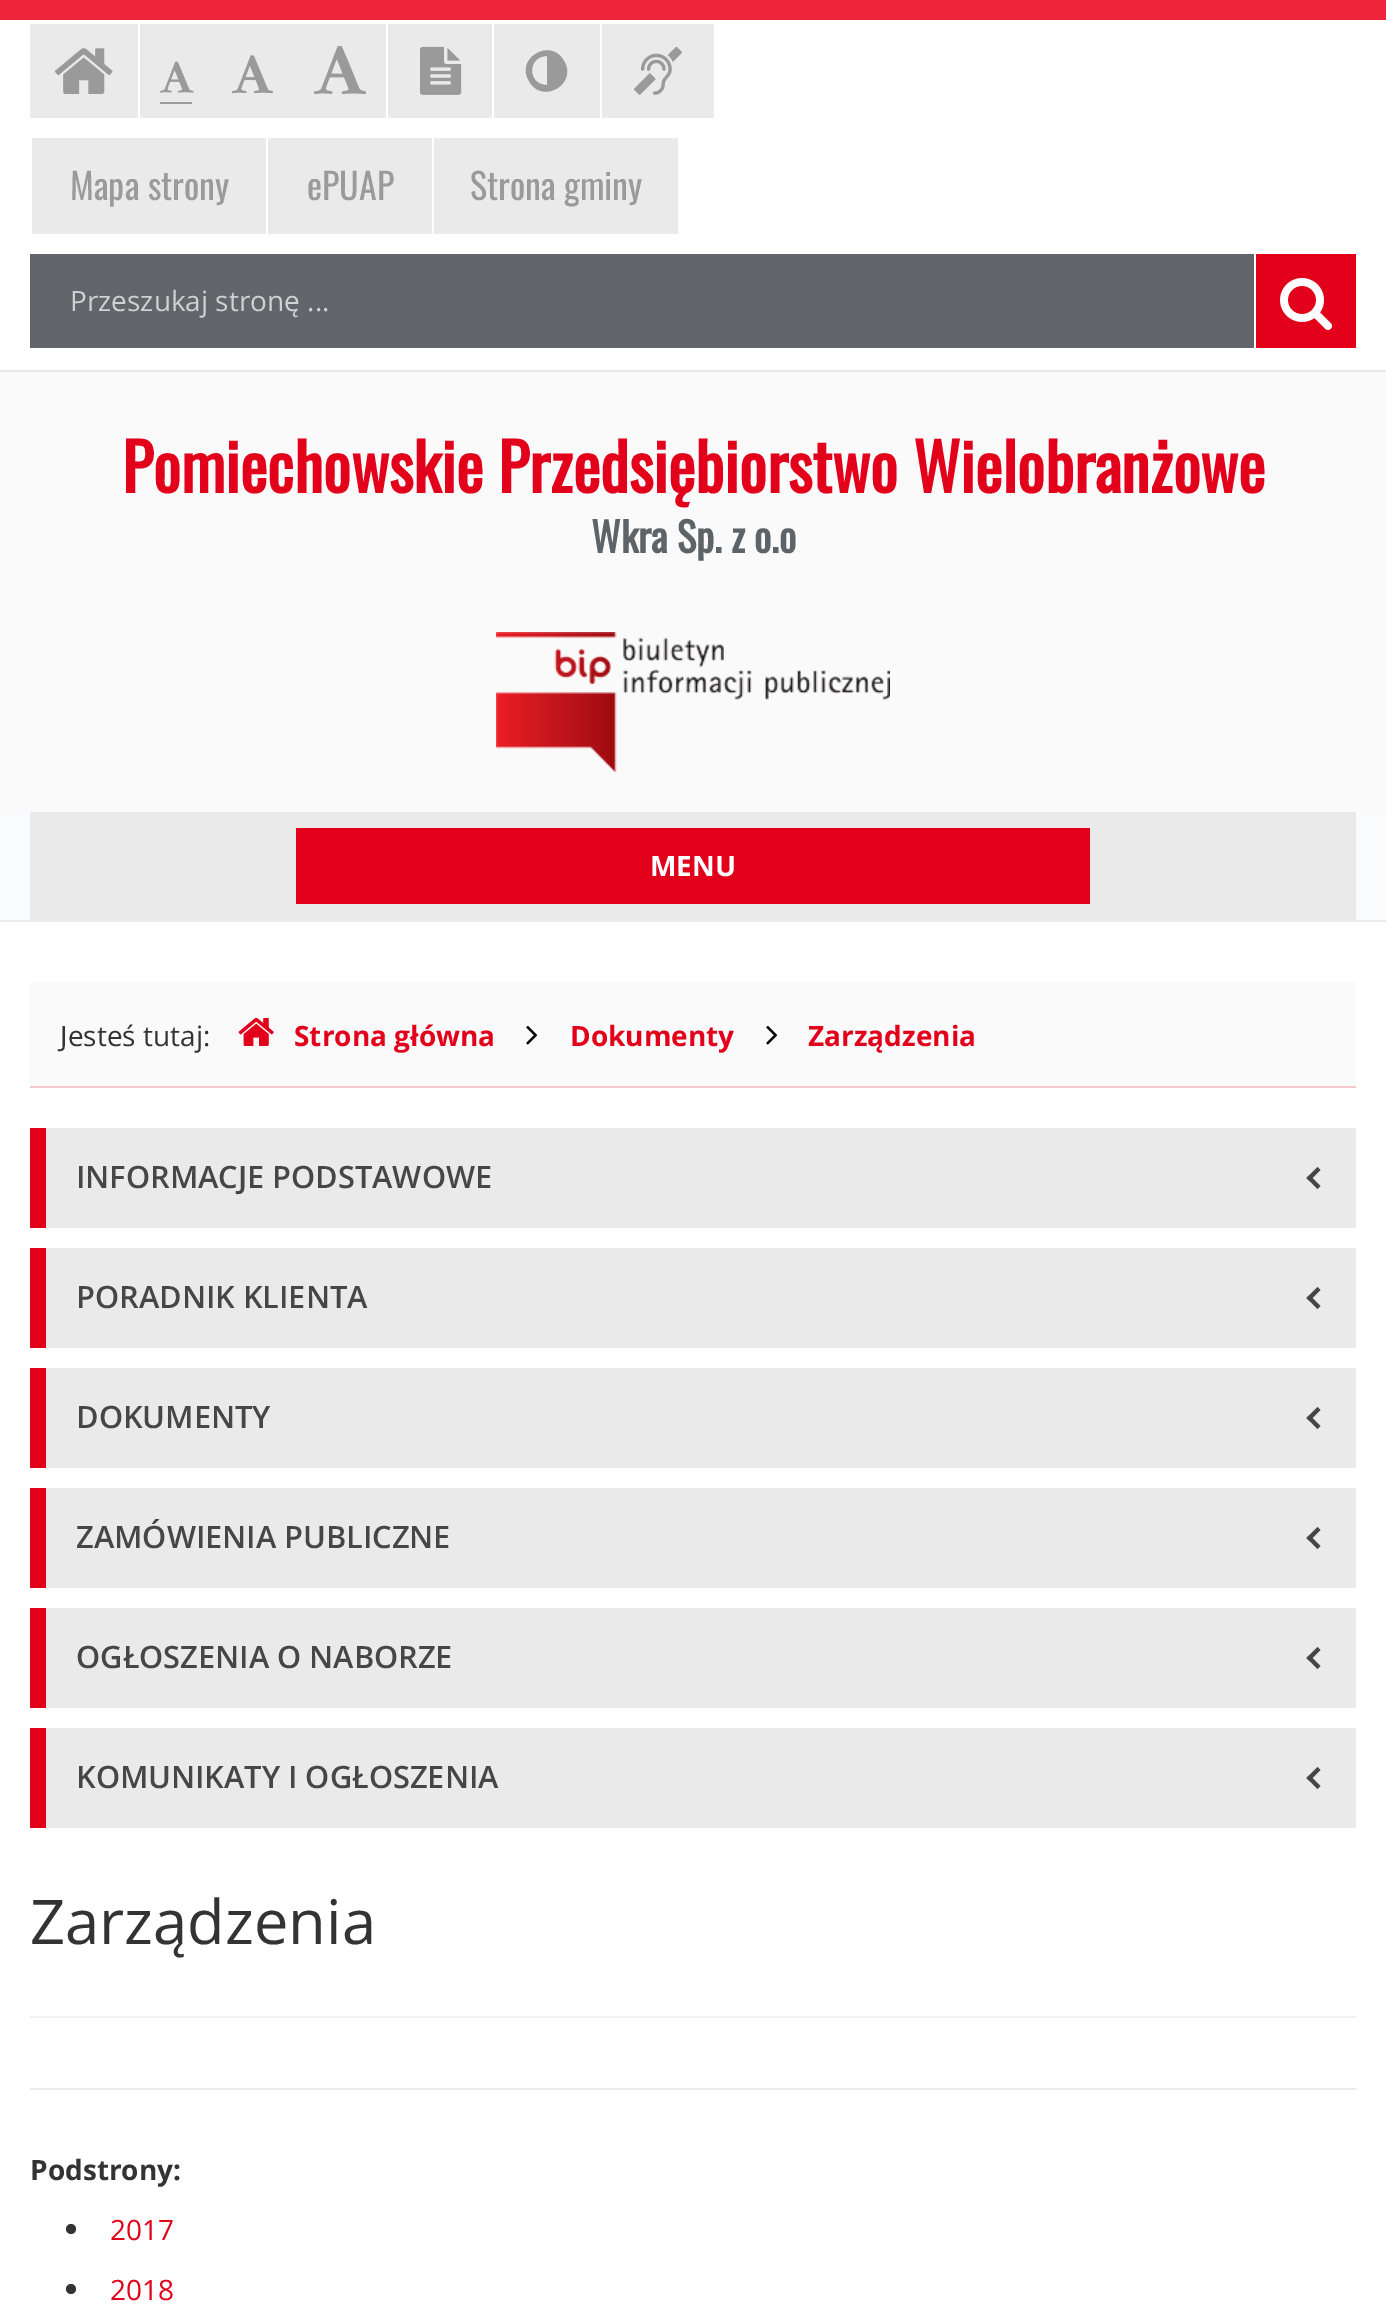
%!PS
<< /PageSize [1386 2318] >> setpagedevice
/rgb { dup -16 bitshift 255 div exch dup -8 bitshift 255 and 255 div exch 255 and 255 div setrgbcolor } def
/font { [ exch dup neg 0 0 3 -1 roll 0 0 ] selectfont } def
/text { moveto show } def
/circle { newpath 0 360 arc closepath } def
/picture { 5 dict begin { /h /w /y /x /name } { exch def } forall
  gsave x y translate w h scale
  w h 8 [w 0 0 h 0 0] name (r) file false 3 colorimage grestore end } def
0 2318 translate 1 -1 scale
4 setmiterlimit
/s1 { /Oswald-Regular 36 font 16#9A9A9B rgb } def
/s2 { /OpenSans-Regular 28 font 16#D0D1D2 rgb } def
/s3 { /Oswald-Bold 65 font 16#E2001A rgb } def
/s4 { /Oswald-Bold 40.5 font 16#5E6367 rgb } def
/s5 { /OpenSans-Bold 28 font 16#FFFFFF rgb } def
/s6 { /OpenSans-Regular 28 font 16#333333 rgb } def
/s7 { /OpenSans-Bold 28 font 16#E2001A rgb } def
/s8 { /OpenSans-SemiBold 30.75 font 16#464646 rgb } def
/s9 { /OpenSans-Regular 61.5 font 16#333333 rgb } def
/s10 { /OpenSans-Bold 28 font 16#333333 rgb } def
/s11 { /OpenSans-Regular 28 font 16#E2001A rgb } def
16#FFFFFF rgb
0 0 1386 2318 rectfill
16#EF233C rgb
0 0 1386 20 rectfill
16#EAEAEB rgb
30 24 108 94 rectfill
(pic1.raw) 55 48 58 46 picture
140 24 246 94 rectfill
16#9A9A9B rgb
160 102 32 2 rectfill
(pic2.raw) 160 61 34 32 picture
(pic3.raw) 232 55 41 39 picture
(pic4.raw) 314 46 52 48 picture
16#EAEAEB rgb
388 24 104 94 rectfill
(pic5.raw) 420 46 42 49 picture
494 24 106 94 rectfill
16#9A9A9B rgb
547 85 moveto 547 56 lineto 527 56 527 85 547 85 curveto closepath 564 61 moveto 578 84 542 105 529 81 curveto 515 58 551 37 564 61 curveto closepath fill
16#EAEAEB rgb
602 24 112 94 rectfill
(pic6.raw) 634 46 48 49 picture
32 138 234 96 rectfill
s1
(Mapa strony) 70 200 text
16#EAEAEB rgb
268 138 164 96 rectfill
s1
(ePUAP) 307 200 text
16#EAEAEB rgb
434 138 244 96 rectfill
s1
(Strona gminy) 470 200 text
16#62666A rgb
30 254 1224 94 rectfill
s2
(Przeszukaj stronę ...) 70 311 text
16#E2001A rgb
1256 254 100 94 rectfill
(pic7.raw) 1280 278 52 52 picture
16#FAFAFA rgb
0 372 1386 440 rectfill
16#EAEAEB rgb
0 370 1386 2 rectfill
s3
(Pomiechowskie Przedsiębiorstwo Wielobranżowe) 122 493 text
s4
(Wkra Sp. z o.o) 591 553 text
(pic8.raw) 496 632 394 140 picture
16#FAFBFC rgb
0 812 1386 108 rectfill
16#EAEAEB rgb
0 920 1386 2 rectfill
30 812 1326 108 rectfill
16#E2001A rgb
296 828 794 76 rectfill
s5
(MENU) 650 876 text
16#FAFAFA rgb
30 982 1326 104 rectfill
16#F5C8CD rgb
30 1086 1326 2 rectfill
s6
(Jesteś tutaj:) 60 1046 text
(pic9.raw) 238 1017 36 29 picture
s7
(Strona główna) 294 1046 text
(pic10.raw) 526 1025 12 20 picture
(Dokumenty) 570 1046 text
(pic10.raw) 766 1025 12 20 picture
(Zarządzenia) 808 1046 text
16#EAEAEB rgb
46 1128 1310 100 rectfill
16#E2001A rgb
30 1128 16 100 rectfill
s8
(INFORMACJE PODSTAWOWE) 76 1188 text
1306.5 1178 moveto 1317.5 1167 lineto 1320.5 1170 lineto 1309.5 1181 lineto closepath fill
1306.5 1178 moveto 1309.5 1175 lineto 1320.5 1186 lineto 1317.5 1189 lineto closepath fill
16#EAEAEB rgb
46 1248 1310 100 rectfill
16#E2001A rgb
30 1248 16 100 rectfill
s8
(PORADNIK KLIENTA) 76 1308 text
1306.5 1298 moveto 1317.5 1287 lineto 1320.5 1290 lineto 1309.5 1301 lineto closepath fill
1306.5 1298 moveto 1309.5 1295 lineto 1320.5 1306 lineto 1317.5 1309 lineto closepath fill
16#EAEAEB rgb
46 1368 1310 100 rectfill
16#E2001A rgb
30 1368 16 100 rectfill
s8
(DOKUMENTY) 76 1428 text
1306.5 1418 moveto 1317.5 1407 lineto 1320.5 1410 lineto 1309.5 1421 lineto closepath fill
1306.5 1418 moveto 1309.5 1415 lineto 1320.5 1426 lineto 1317.5 1429 lineto closepath fill
16#EAEAEB rgb
46 1488 1310 100 rectfill
16#E2001A rgb
30 1488 16 100 rectfill
s8
(ZAMÓWIENIA PUBLICZNE) 76 1548 text
1306.5 1538 moveto 1317.5 1527 lineto 1320.5 1530 lineto 1309.5 1541 lineto closepath fill
1306.5 1538 moveto 1309.5 1535 lineto 1320.5 1546 lineto 1317.5 1549 lineto closepath fill
16#EAEAEB rgb
46 1608 1310 100 rectfill
16#E2001A rgb
30 1608 16 100 rectfill
s8
(OGŁOSZENIA O NABORZE) 76 1668 text
1306.5 1658 moveto 1317.5 1647 lineto 1320.5 1650 lineto 1309.5 1661 lineto closepath fill
1306.5 1658 moveto 1309.5 1655 lineto 1320.5 1666 lineto 1317.5 1669 lineto closepath fill
16#EAEAEB rgb
46 1728 1310 100 rectfill
16#E2001A rgb
30 1728 16 100 rectfill
s8
(KOMUNIKATY I OGŁOSZENIA) 76 1788 text
1306.5 1778 moveto 1317.5 1767 lineto 1320.5 1770 lineto 1309.5 1781 lineto closepath fill
1306.5 1778 moveto 1309.5 1775 lineto 1320.5 1786 lineto 1317.5 1789 lineto closepath fill
s9
(Zarządzenia) 30 1944 text
16#F1F1F1 rgb
30 2016 1326 2 rectfill
16#EAEAEA rgb
30 2088 1326 2 rectfill
s10
(Podstrony:) 30 2180 text
71 2229 5 circle fill
s11
(2017) 110 2240 text
16#333333 rgb
71 2289 5 circle fill
s11
(2018) 110 2300 text
showpage
